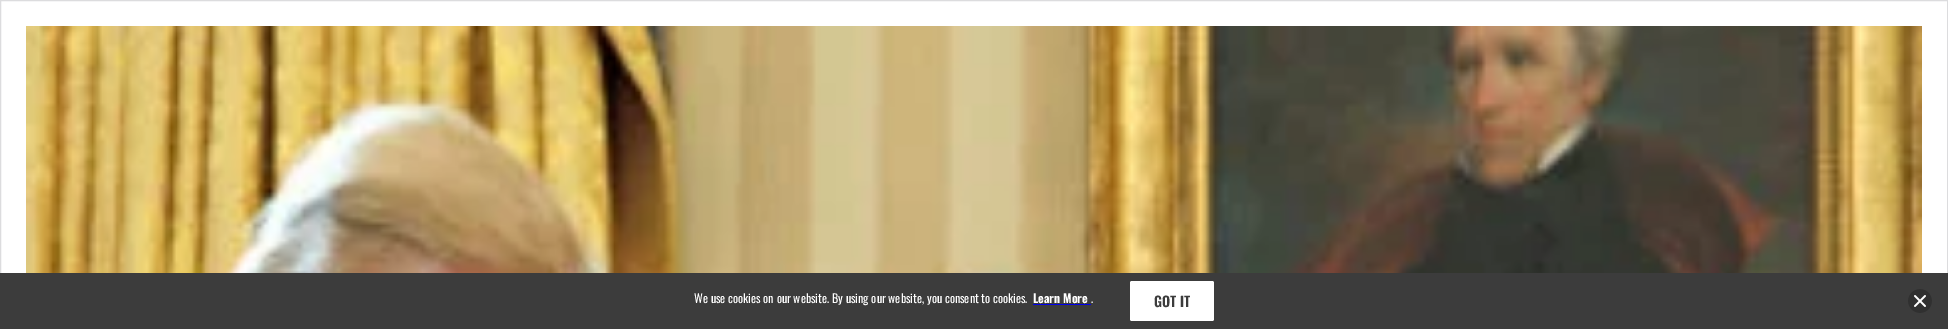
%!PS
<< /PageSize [1948 329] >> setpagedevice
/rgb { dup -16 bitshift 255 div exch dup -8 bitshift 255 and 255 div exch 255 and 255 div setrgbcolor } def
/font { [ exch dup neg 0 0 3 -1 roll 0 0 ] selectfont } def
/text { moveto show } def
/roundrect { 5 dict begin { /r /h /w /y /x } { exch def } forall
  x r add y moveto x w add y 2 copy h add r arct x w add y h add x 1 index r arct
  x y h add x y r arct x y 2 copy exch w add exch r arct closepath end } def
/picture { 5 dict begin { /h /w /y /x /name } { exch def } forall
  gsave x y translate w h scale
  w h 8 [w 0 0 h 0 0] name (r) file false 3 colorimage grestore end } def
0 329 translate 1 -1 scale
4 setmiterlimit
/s1 { /Oswald-Regular 12 font 16#FFFFFF rgb } def
/s2 { /Oswald-Bold 12 font 16#FFFFFF rgb } def
/s3 { /Oswald-SemiBold 14 font 16#3C3C3C rgb } def
16#FFFFFF rgb
0 0 1948 329 rectfill
16#DCDCDE rgb
0.5 0.5 1947 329 rectstroke
(pic1.raw) 26 26 1896 247 picture
16#3C3C3C rgb
0 273 1948 56 rectfill
s1
(We use cookies on our website. By using our website, you consent to cookies.) 694 303 text
s2
(Learn More) 1033 303 text
s1
(.) 1091 303 text
16#0000EE rgb
1033 304 58 1 rectfill
16#FFFFFF rgb
1130 281 84 40 2 roundrect fill
s3
(GOT IT) 1154 307 text
(pic2.raw) 1908 289 24 24 picture
showpage
